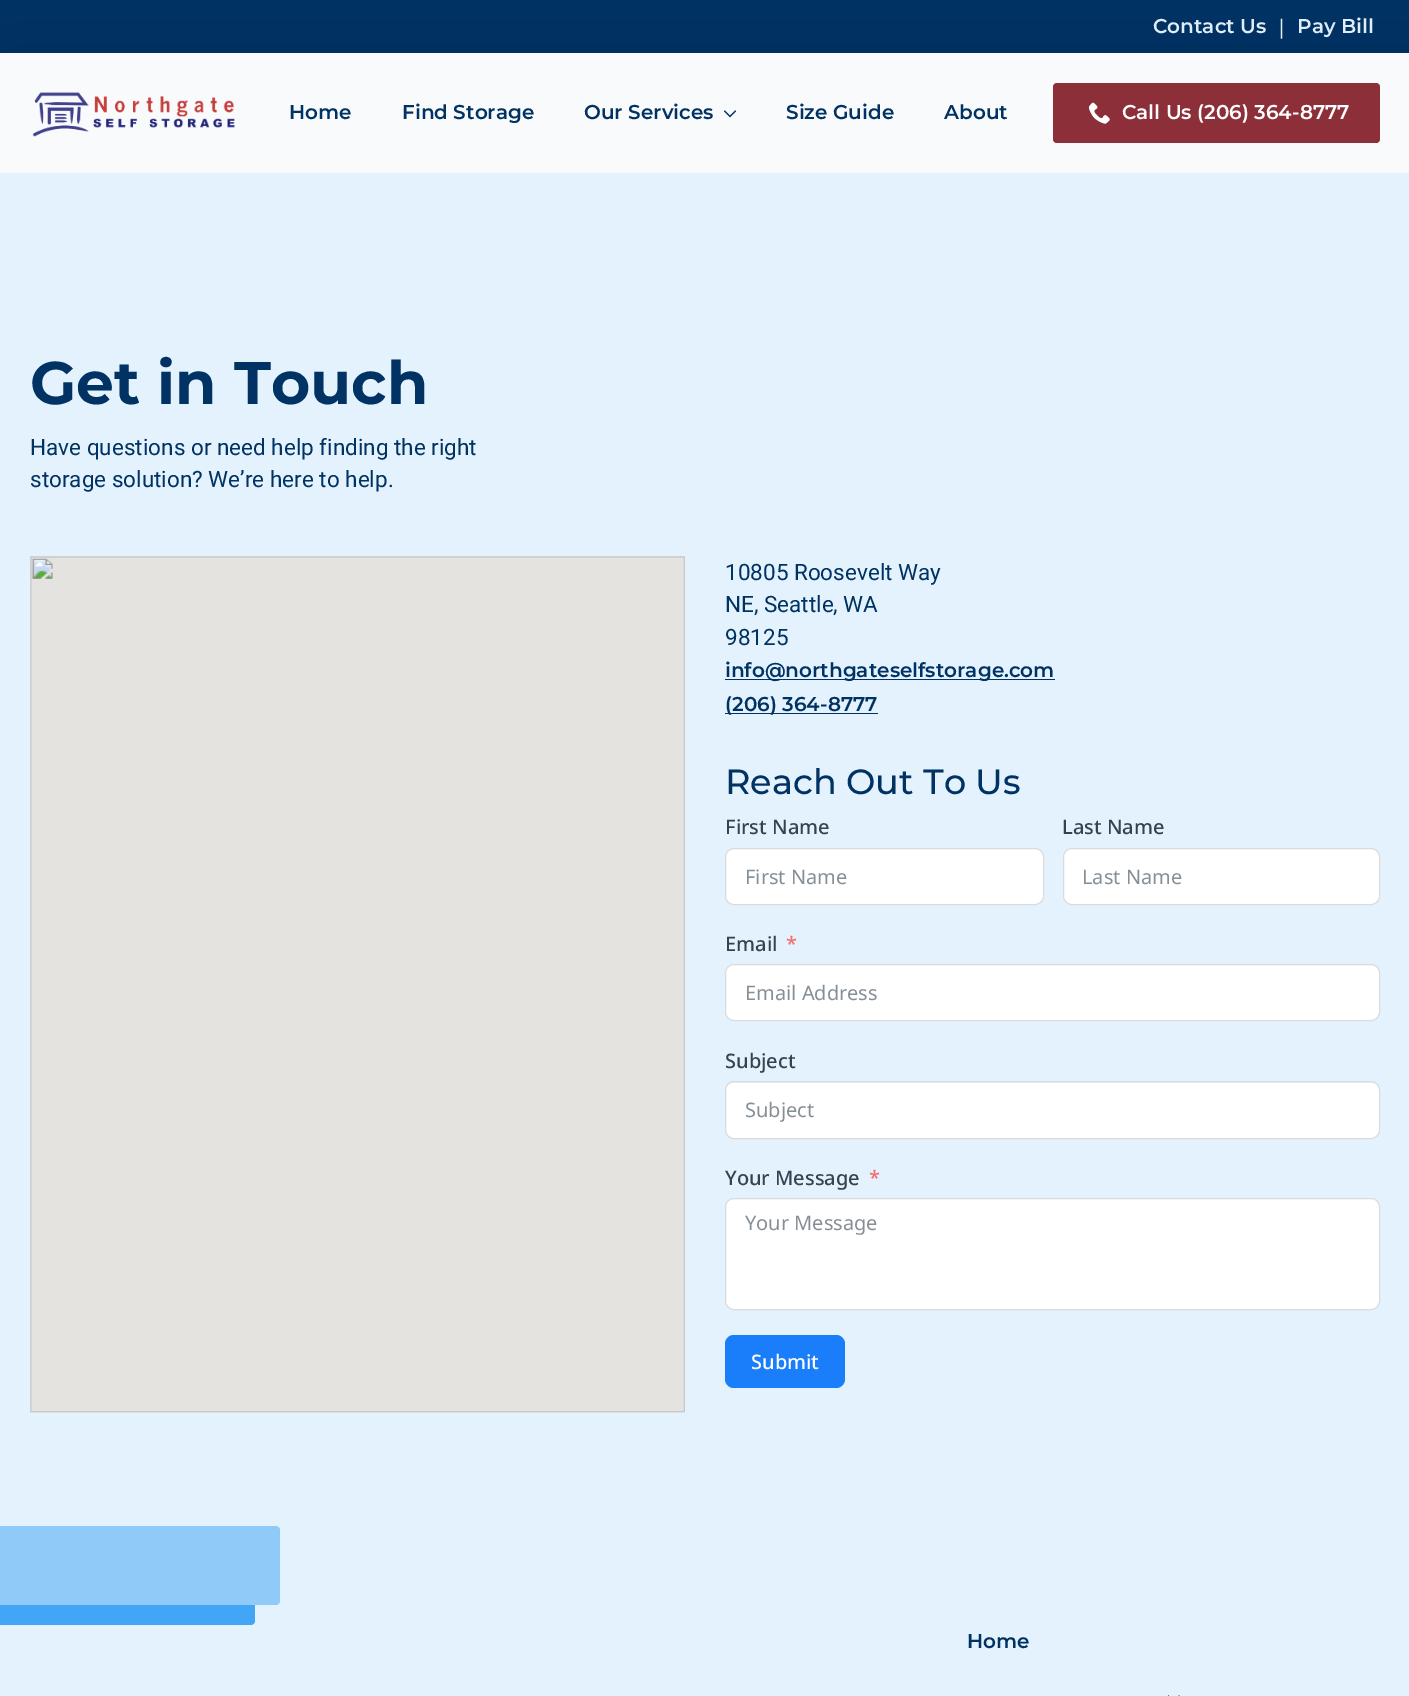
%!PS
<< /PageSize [1409 1696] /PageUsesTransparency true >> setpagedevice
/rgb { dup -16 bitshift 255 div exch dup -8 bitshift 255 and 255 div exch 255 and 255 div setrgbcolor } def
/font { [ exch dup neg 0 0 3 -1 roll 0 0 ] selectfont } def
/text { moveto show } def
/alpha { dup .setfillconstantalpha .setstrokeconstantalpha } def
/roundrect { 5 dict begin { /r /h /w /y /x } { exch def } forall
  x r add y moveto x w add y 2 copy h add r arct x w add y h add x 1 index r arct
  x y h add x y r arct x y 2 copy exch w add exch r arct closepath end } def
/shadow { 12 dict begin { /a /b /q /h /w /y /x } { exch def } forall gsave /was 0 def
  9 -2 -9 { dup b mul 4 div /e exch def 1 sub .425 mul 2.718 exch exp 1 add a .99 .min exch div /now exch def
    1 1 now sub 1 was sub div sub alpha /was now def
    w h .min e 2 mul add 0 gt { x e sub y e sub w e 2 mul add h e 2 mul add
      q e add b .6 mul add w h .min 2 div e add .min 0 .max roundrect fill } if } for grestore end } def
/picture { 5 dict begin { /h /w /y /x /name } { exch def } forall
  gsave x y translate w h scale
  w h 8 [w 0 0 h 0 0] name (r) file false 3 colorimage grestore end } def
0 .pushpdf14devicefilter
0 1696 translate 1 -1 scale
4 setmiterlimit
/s1 { /Montserrat-SemiBold 20 font 16#E3F2FD rgb } def
/s2 { /NotoSans-Regular 20 font 16#E3F2FD rgb } def
/s3 { /Montserrat-SemiBold 20 font 16#003263 rgb } def
/s4 { /Montserrat-SemiBold 20 font 16#FFFFFF rgb } def
/s5 { /Montserrat-Bold 60 font 16#003263 rgb } def
/s6 { /Roboto-Regular 22.5 font 16#003263 rgb } def
/s7 { /Montserrat-Medium 35 font 16#003263 rgb } def
/s8 { /NotoSans-Medium 20 font 16#374151 rgb } def
/s9 { /NotoSans-Regular 20 font 16#868E96 rgb } def
/s10 { /NotoSans-Medium 20 font 16#F56C6C rgb } def
/s11 { /NotoSans-Medium 20 font 16#FFFFFF rgb } def
16#003263 rgb
0 0 1409 1696 rectfill
s1
(Contact Us) 1153 33 text
s2
(|) 1276 34 text
s1
(Pay Bill) 1297 33 text
16#000000 rgb
6 78 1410 120 0 47 0.14 shadow
16#F9FAFB rgb
0 53 1409 120 rectfill
(pic1.raw) 32 92 203 45 picture
s3
(Home) 289 119 text
(Find Storage) 402 119 text
(Our Services) 584 119 text
(pic2.raw) 724 110 12 8 picture
(Size Guide) 786 119 text
(About) 944 119 text
16#8C2F39 rgb
1053 83 327 60 4 roundrect fill
(pic3.raw) 1089 102 21 22 picture
s4
(Call Us \(206\) 364-8777) 1122 119 text
16#E3F2FD rgb
0 173 1409 1523 rectfill
s5
(Get in Touch) 30 404 text
s6
(Have questions or need help finding the right) 30 455 text
(storage solution? We’re here to help.) 30 487 text
(pic4.raw) 30 556 655 857 picture
(10805 Roosevelt Way) 725 580 text
(NE, Seattle, WA) 725 612 text
(98125) 725 645 text
725 679 330 1 rectfill
s3
(info@northgateselfstorage.com) 725 677 text
725 713 153 1 rectfill
(\(206\) 364-8777) 725 711 text
s7
(Reach Out To Us) 725 794 text
s8
(First Name) 725 834 text
16#FFFFFF rgb
725.5 848.5 318 56 8.5 roundrect gsave fill grestore
16#DADBDD rgb
stroke
s9
(First Name) 745 884 text
s8
(Last Name) 1062 834 text
16#FFFFFF rgb
1063.5 848.5 316 56 8.5 roundrect gsave fill grestore
16#DADBDD rgb
stroke
s9
(Last Name) 1082 884 text
s8
(Email) 725 951 text
s10
(*) 786 951 text
16#FFFFFF rgb
725.5 964.5 654 56 8.5 roundrect gsave fill grestore
16#DADBDD rgb
stroke
s9
(Email Address) 745 1000 text
s8
(Subject) 725 1068 text
16#FFFFFF rgb
726 1083 653 55 8 roundrect fill
16#DADBDD rgb
725.5 1081.5 654 57 8.5 roundrect stroke
s9
(Subject) 745 1117 text
s8
(Your Message) 725 1185 text
s10
(*) 869 1185 text
16#FFFFFF rgb
725.5 1198.5 654 111 8.5 roundrect gsave fill grestore
16#DADBDD rgb
stroke
s9
(Your Message) 745 1230 text
16#1A7EFB rgb
725 1335 120 53 9 roundrect fill
s11
(Submit) 751 1369 text
16#42A5F5 rgb
-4 1547 moveto 251 1547 lineto 253 1547 255 1549 255 1551 curveto 255 1621 lineto 255 1623 253 1625 251 1625 curveto -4 1625 lineto closepath fill
16#90CAF9 rgb
-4 1526 moveto 276 1526 lineto 278 1526 280 1528 280 1530 curveto 280 1601 lineto 280 1603 278 1605 276 1605 curveto -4 1605 lineto closepath fill
s3
(Home) 967 1648 text
(pic5.raw) 1168 1695 12 1 picture
.poppdf14devicefilter showpage
